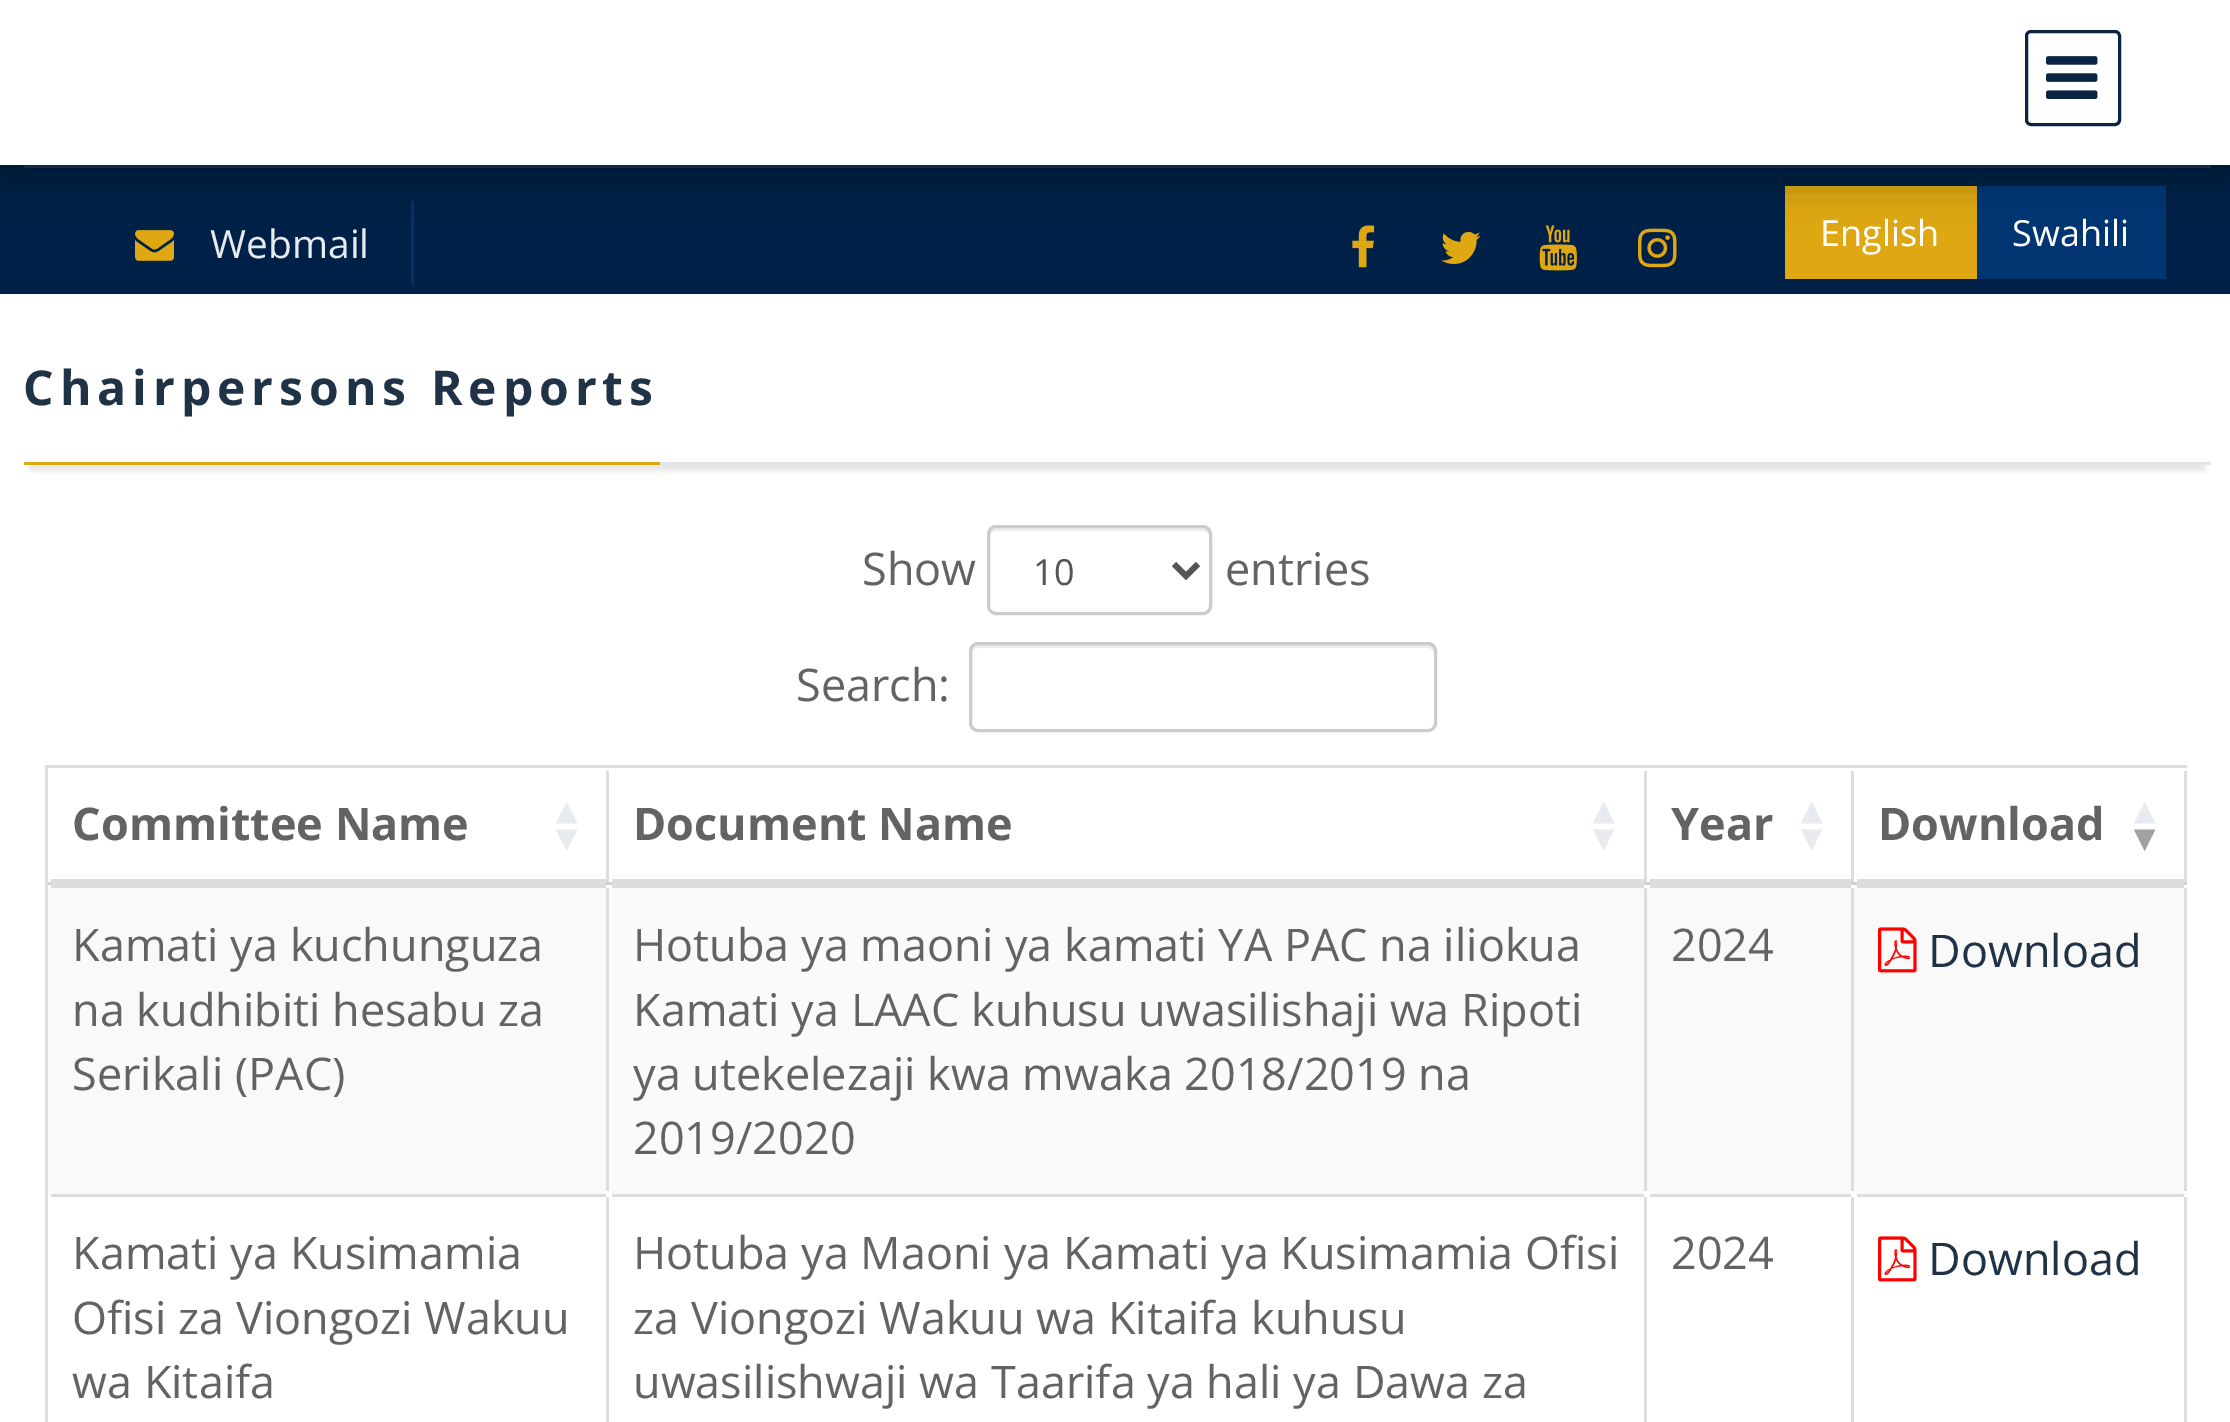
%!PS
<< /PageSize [2230 1422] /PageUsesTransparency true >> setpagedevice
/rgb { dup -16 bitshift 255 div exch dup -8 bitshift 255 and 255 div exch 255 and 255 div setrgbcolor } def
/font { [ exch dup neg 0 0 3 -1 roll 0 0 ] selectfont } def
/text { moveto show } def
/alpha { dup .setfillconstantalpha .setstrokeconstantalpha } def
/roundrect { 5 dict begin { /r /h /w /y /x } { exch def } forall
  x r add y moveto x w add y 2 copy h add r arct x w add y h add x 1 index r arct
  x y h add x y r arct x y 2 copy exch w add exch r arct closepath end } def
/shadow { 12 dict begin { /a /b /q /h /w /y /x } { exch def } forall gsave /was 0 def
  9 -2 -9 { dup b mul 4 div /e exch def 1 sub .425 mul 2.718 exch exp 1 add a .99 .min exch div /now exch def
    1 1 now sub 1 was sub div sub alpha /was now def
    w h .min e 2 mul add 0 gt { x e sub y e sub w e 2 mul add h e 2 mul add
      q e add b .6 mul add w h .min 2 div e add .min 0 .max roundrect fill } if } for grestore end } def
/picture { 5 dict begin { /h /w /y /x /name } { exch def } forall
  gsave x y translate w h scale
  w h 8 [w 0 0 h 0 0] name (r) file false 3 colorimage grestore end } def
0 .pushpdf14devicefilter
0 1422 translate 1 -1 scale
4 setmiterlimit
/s1 { /OpenSans-Regular 39 font 16#E7EAEE rgb } def
/s2 { /OpenSans-Regular 36 font 16#FFFFFF rgb } def
/s3 { /OpenSans-Regular 45 font 16#636363 rgb } def
/s4 { /OpenSans-Regular 36 font 16#555555 rgb } def
/s5 { /OpenSans-Bold 45 font 16#636363 rgb } def
/s6 { /DejaVuSans-Bold 40 font 16#E7EAEE rgb } def
/s7 { /DejaVuSans-Bold 40 font 16#A1A1A1 rgb } def
/s8 { /OpenSans-Regular 45 font 16#203245 rgb } def
16#002147 rgb
0 0 2230 1422 rectfill
16#1A3759 rgb
24 165 2187 3 rectfill
16#043267 rgb
411 201 3 84 rectfill
(pic2.raw) 135 230 39 31 picture
(pic3.raw) 1352 225 23 43 picture
(pic4.raw) 1441 231 40 33 picture
(pic5.raw) 1539 225 38 46 picture
(pic6.raw) 1638 228 39 40 picture
16#DFA812 rgb
1785 186 192 93 rectfill
16#013673 rgb
1977 186 189 93 rectfill
16#000000 rgb
0 12 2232 165 0 22.5 0.32 shadow
16#FFFFFF rgb
0 0 2230 165 rectfill
16#0A2444 rgb
3 setlinewidth
2026.5 31.5 93 93 4.5 roundrect stroke
(pic1.raw) 2046 56 52 43 picture
s1
(Webmail) 210 258 text
s2
(English) 1820 246 text
(Swahili) 2012 246 text
0 294 2230 1128 rectfill
gsave
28 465 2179 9 rectclip
16#000000 rgb
30 342 2175 129 0 3 0.1 shadow
grestore
16#E6E6E6 rgb
660 462 1551 3 rectfill
/OpenSans-Bold 48 font
16#203245 rgb
23 405 moveto 6 0 (Chairpersons Reports) ashow
16#DFA812 rgb
24 462 636 3 rectfill
s3
(Show) 862 585 text
16#ECECEC rgb
996 531 moveto 1203 531 lineto 1206 531 1209 534 1209 537 curveto 1209 534 lineto 1209 531 1206 528 1203 528 curveto 996 528 lineto 993 528 990 531 990 534 curveto 990 537 lineto 990 534 993 531 996 531 curveto closepath fill
16#CCCCCC rgb
988.5 526.5 222 87 7.5 roundrect stroke
16#555555 rgb
6 setlinewidth
1174 564 moveto 1186 576 lineto 1198 564 lineto stroke
s4
(10) 1033 585 text
s3
(entries) 1225 585 text
(Search:) 796 701 text
16#ECECEC rgb
978 648 moveto 1428 648 lineto 1431 648 1434 651 1434 654 curveto 1434 651 lineto 1434 648 1431 645 1428 645 curveto 978 645 lineto 975 645 972 648 972 651 curveto 972 654 lineto 972 651 975 648 978 648 curveto closepath fill
16#CCCCCC rgb
3 setlinewidth
970.5 643.5 465 87 7.5 roundrect stroke
16#DDDDDD rgb
45 765 2142 3 rectfill
45 765 3 657 rectfill
16#D0D0D0 rgb
48 882 2139 3 rectfill
16#DDDDDD rgb
606 771 3 111 rectfill
s5
(Committee Name) 72 840 text
s6
(▴) 556 824 text
(▾) 556 851 text
16#DDDDDD rgb
1644 771 3 111 rectfill
s5
(Document Name) 633 840 text
s6
(▴) 1593 824 text
(▾) 1593 851 text
16#DDDDDD rgb
1851 771 3 111 rectfill
s5
(Year) 1671 840 text
s6
(▴) 1801 824 text
(▾) 1801 851 text
16#DDDDDD rgb
2184 771 3 111 rectfill
s5
(Download) 1878 840 text
s6
(▴) 2134 824 text
s7
(▾) 2134 851 text
16#F9F9F9 rgb
54 888 moveto 603 888 lineto 605 888 606 889 606 891 curveto 606 1188 lineto 606 1191 605 1194 603 1194 curveto 54 1194 lineto 51 1194 48 1191 48 1188 curveto 48 891 lineto 48 889 51 888 54 888 curveto closepath fill
16#DDDDDD rgb
51 879 555 9 rectfill
606 888 3 303 rectfill
s3
(Kamati ya kuchunguza) 72 961 text
(na kudhibiti hesabu za) 72 1026 text
(Serikali \(PAC\)) 72 1090 text
16#FAFAFA rgb
615 888 moveto 1641 888 lineto 1643 888 1644 889 1644 891 curveto 1644 1188 lineto 1644 1191 1643 1194 1641 1194 curveto 615 1194 lineto 612 1194 609 1191 609 1188 curveto 609 891 lineto 609 889 612 888 615 888 curveto closepath fill
16#DDDDDD rgb
612 879 1032 9 rectfill
1644 888 3 303 rectfill
s3
(Hotuba ya maoni ya kamati YA PAC na iliokua) 633 961 text
(Kamati ya LAAC kuhusu uwasilishaji wa Ripoti) 633 1026 text
(ya utekelezaji kwa mwaka 2018/2019 na) 633 1090 text
(2019/2020) 633 1154 text
16#F9F9F9 rgb
1653 888 moveto 1848 888 lineto 1850 888 1851 889 1851 891 curveto 1851 1188 lineto 1851 1191 1850 1194 1848 1194 curveto 1653 1194 lineto 1650 1194 1647 1191 1647 1188 curveto 1647 891 lineto 1647 889 1650 888 1653 888 curveto closepath fill
16#DDDDDD rgb
1650 879 201 9 rectfill
1851 888 3 303 rectfill
s3
(2024) 1671 961 text
16#F9F9F9 rgb
1860 888 moveto 2181 888 lineto 2183 888 2184 889 2184 891 curveto 2184 1188 lineto 2184 1191 2183 1194 2181 1194 curveto 1860 1194 lineto 1857 1194 1854 1191 1854 1188 curveto 1854 891 lineto 1854 889 1857 888 1860 888 curveto closepath fill
16#DDDDDD rgb
1857 879 327 9 rectfill
2184 888 3 303 rectfill
(pic7.raw) 1878 927 39 46 picture
s8
(Download) 1928 967 text
16#DDDDDD rgb
51 1194 555 3 rectfill
606 1197 3 225 rectfill
s3
(Kamati ya Kusimamia) 72 1269 text
(Ofisi za Viongozi Wakuu) 72 1334 text
(wa Kitaifa) 72 1398 text
16#DDDDDD rgb
612 1194 1032 3 rectfill
1644 1197 3 225 rectfill
s3
(Hotuba ya Maoni ya Kamati ya Kusimamia Ofisi) 633 1269 text
(za Viongozi Wakuu wa Kitaifa kuhusu) 633 1334 text
(uwasilishwaji wa Taarifa ya hali ya Dawa za) 633 1398 text
16#DDDDDD rgb
1650 1194 201 3 rectfill
1851 1197 3 225 rectfill
s3
(2024) 1671 1269 text
16#DDDDDD rgb
1857 1194 327 3 rectfill
2184 1197 3 225 rectfill
(pic8.raw) 1878 1236 39 46 picture
s8
(Download) 1928 1275 text
.poppdf14devicefilter showpage
